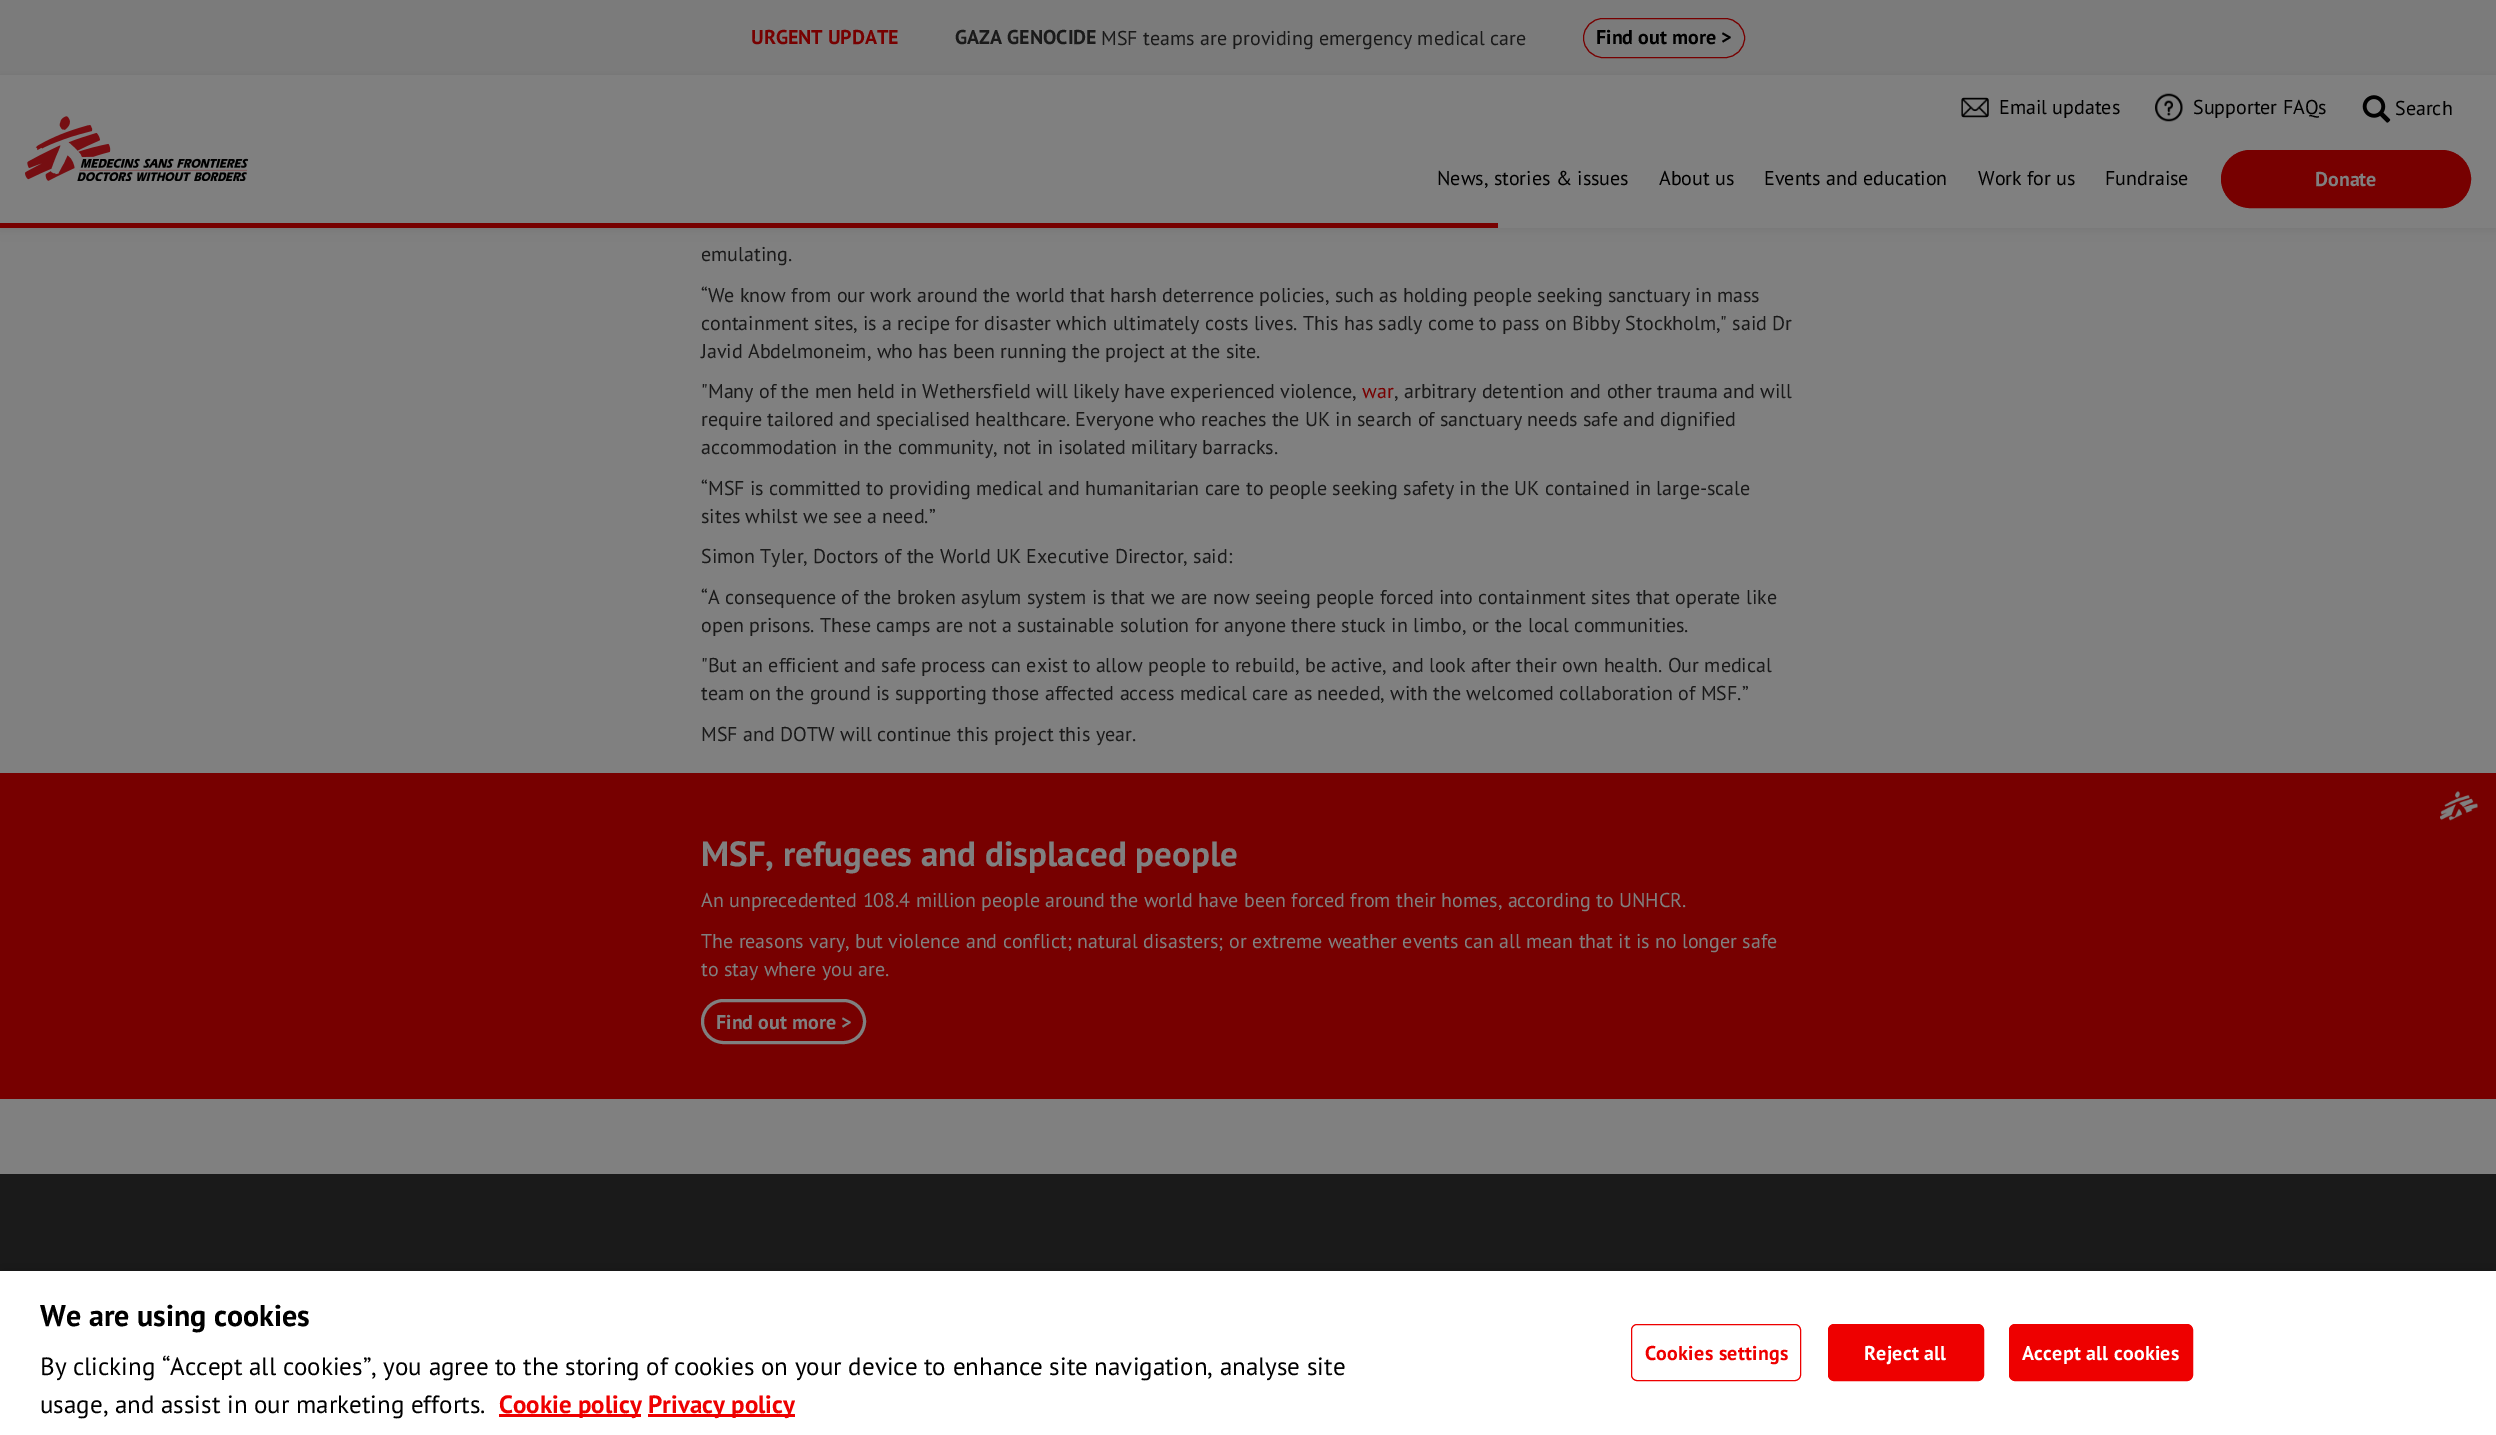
%!PS
<< /PageSize [2496 1435] /PageUsesTransparency true >> setpagedevice
/rgb { dup -16 bitshift 255 div exch dup -8 bitshift 255 and 255 div exch 255 and 255 div setrgbcolor } def
/font { [ exch dup neg 0 0 3 -1 roll 0 0 ] selectfont } def
/text { moveto show } def
/alpha { dup .setfillconstantalpha .setstrokeconstantalpha } def
/roundrect { 5 dict begin { /r /h /w /y /x } { exch def } forall
  x r add y moveto x w add y 2 copy h add r arct x w add y h add x 1 index r arct
  x y h add x y r arct x y 2 copy exch w add exch r arct closepath end } def
/shadow { 12 dict begin { /a /b /q /h /w /y /x } { exch def } forall gsave /was 0 def
  9 -2 -9 { dup b mul 4 div /e exch def 1 sub .425 mul 2.718 exch exp 1 add a .99 .min exch div /now exch def
    1 1 now sub 1 was sub div sub alpha /was now def
    w h .min e 2 mul add 0 gt { x e sub y e sub w e 2 mul add h e 2 mul add
      q e add b .6 mul add w h .min 2 div e add .min 0 .max roundrect fill } if } for grestore end } def
/picture { 5 dict begin { /h /w /y /x /name } { exch def } forall
  gsave x y translate w h scale
  w h 8 [w 0 0 h 0 0] name (r) file false 3 colorimage grestore end } def
0 .pushpdf14devicefilter
0 1435 translate 1 -1 scale
4 setmiterlimit
/s1 { /PTSans-Bold 20 font 16#770000 rgb } def
/s2 { /PTSans-Bold 20 font 16#1A1A1A rgb } def
/s3 { /PTSans-Regular 20 font 16#1A1A1A rgb } def
/s4 { /PTSans-Bold 20 font 16#000000 rgb } def
/s5 { /PTSans-Regular 20 font 16#000000 rgb } def
/s6 { /PTSans-Bold 20 font 16#808080 rgb } def
/s7 { /PTSans-Regular 20 font 16#770000 rgb } def
/s8 { /PTSans-Bold 35 font 16#808080 rgb } def
/s9 { /PTSans-Regular 20 font 16#808080 rgb } def
/s10 { /PTSans-Bold 30 font 16#000000 rgb } def
/s11 { /PTSans-Regular 25 font 16#000000 rgb } def
/s12 { /PTSans-Bold 25 font 16#EE0000 rgb } def
16#808080 rgb
0 0 2496 1435 rectfill
16#7B7B7B rgb
0 0 2496 75 rectfill
s1
(URGENT UPDATE) 751 44 text
s2
(GAZA GENOCIDE) 955 44 text
s3
(MSF teams are providing emergency medical care) 1101 45 text
16#770000 rgb
1583.5 18.5 161 39 19.5 roundrect stroke
s4
(Find out more >) 1596 44 text
0 78 2496 150 0 6 0.1 shadow
16#808080 rgb
0 75 2496 148 rectfill
(pic1.raw) 25 116 224 65 picture
(pic2.raw) 1961 97 28 21 picture
s5
(Email updates) 1999 114 text
(pic3.raw) 2155 93 28 29 picture
(Supporter FAQs) 2193 114 text
(pic4.raw) 2362 95 29 28 picture
(Search) 2395 115 text
(News, stories & issues) 1437 185 text
(About us) 1659 185 text
(Events and education) 1764 185 text
(Work for us) 1978 185 text
(Fundraise) 2105 185 text
16#770000 rgb
2221.5 150.5 249 57 28.5 roundrect gsave fill grestore
stroke
s6
(Donate) 2315 186 text
1498 223 998 5 rectfill
16#770000 rgb
0 223 1498 5 rectfill
s3
(emulating.) 701 261 text
(“We know from our work around the world that harsh deterrence policies, such as holding people seeking sanctuary in mass) 701 302 text
(containment sites, is a recipe for disaster which ultimately costs lives. This has sadly come to pass on Bibby Stockholm," said Dr) 701 330 text
(Javid Abdelmoneim, who has been running the project at the site.) 701 358 text
("Many of the men held in Wethersfield will likely have experienced violence,) 701 398 text
s7
(war) 1362 398 text
s3
(, arbitrary detention and other trauma and will) 1394 398 text
(require tailored and specialised healthcare. Everyone who reaches the UK in search of sanctuary needs safe and dignified) 701 426 text
(accommodation in the community, not in isolated military barracks.) 701 454 text
(“MSF is committed to providing medical and humanitarian care to people seeking safety in the UK contained in large-scale) 701 495 text
(sites whilst we see a need.”) 701 523 text
(Simon Tyler, Doctors of the World UK Executive Director, said:) 701 563 text
(“A consequence of the broken asylum system is that we are now seeing people forced into containment sites that operate like) 701 604 text
(open prisons. These camps are not a sustainable solution for anyone there stuck in limbo, or the local communities.) 701 632 text
("But an efficient and safe process can exist to allow people to rebuild, be active, and look after their own health. Our medical) 701 672 text
(team on the ground is supporting those affected access medical care as needed, with the welcomed collaboration of MSF.”) 701 700 text
(MSF and DOTW will continue this project this year.) 701 741 text
16#770000 rgb
0 773 2496 326 rectfill
(pic5.raw) 2440 791 38 30 picture
s8
(MSF, refugees and displaced people) 701 866 text
s9
(An unprecedented 108.4 million people around the world have been forced from their homes, according to UNHCR.) 701 907 text
(The reasons vary, but violence and conflict; natural disasters; or extreme weather events can all mean that it is no longer safe) 701 948 text
(to stay where you are.) 701 976 text
3 setlinewidth
702.5 1000.5 162 42 21 roundrect stroke
s6
(Find out more >) 716 1029 text
16#1A1A1A rgb
0 1174 2496 97 rectfill
16#000000 rgb
0 1271 2496 164 0 11 0.2 shadow
16#FFFFFF rgb
0 1271 2496 164 rectfill
s10
(We are using cookies) 40 1326 text
s11
(By clicking “Accept all cookies”, you agree to the storing of cookies on your device to enhance site navigation, analyse site) 40 1375 text
(usage, and assist in our marketing efforts.) 40 1413 text
16#EE0000 rgb
499 1414 142 3 rectfill
s12
(Cookie policy) 499 1413 text
648 1414 147 3 rectfill
(Privacy policy) 648 1413 text
1 setlinewidth
1631.5 1324.5 169 56 5.5 roundrect stroke
/PTSans-Bold 20 font
1645 1360 moveto 0.25 0 (Cookies settings) ashow
1828.5 1324.5 155 56 5.5 roundrect gsave fill grestore
stroke
16#FFFFFF rgb
1864 1360 moveto 0.25 0 (Reject all) ashow
16#EE0000 rgb
2009.5 1324.5 183 56 5.5 roundrect gsave fill grestore
stroke
16#FFFFFF rgb
2022 1360 moveto 0.25 0 (Accept all cookies) ashow
.poppdf14devicefilter showpage
